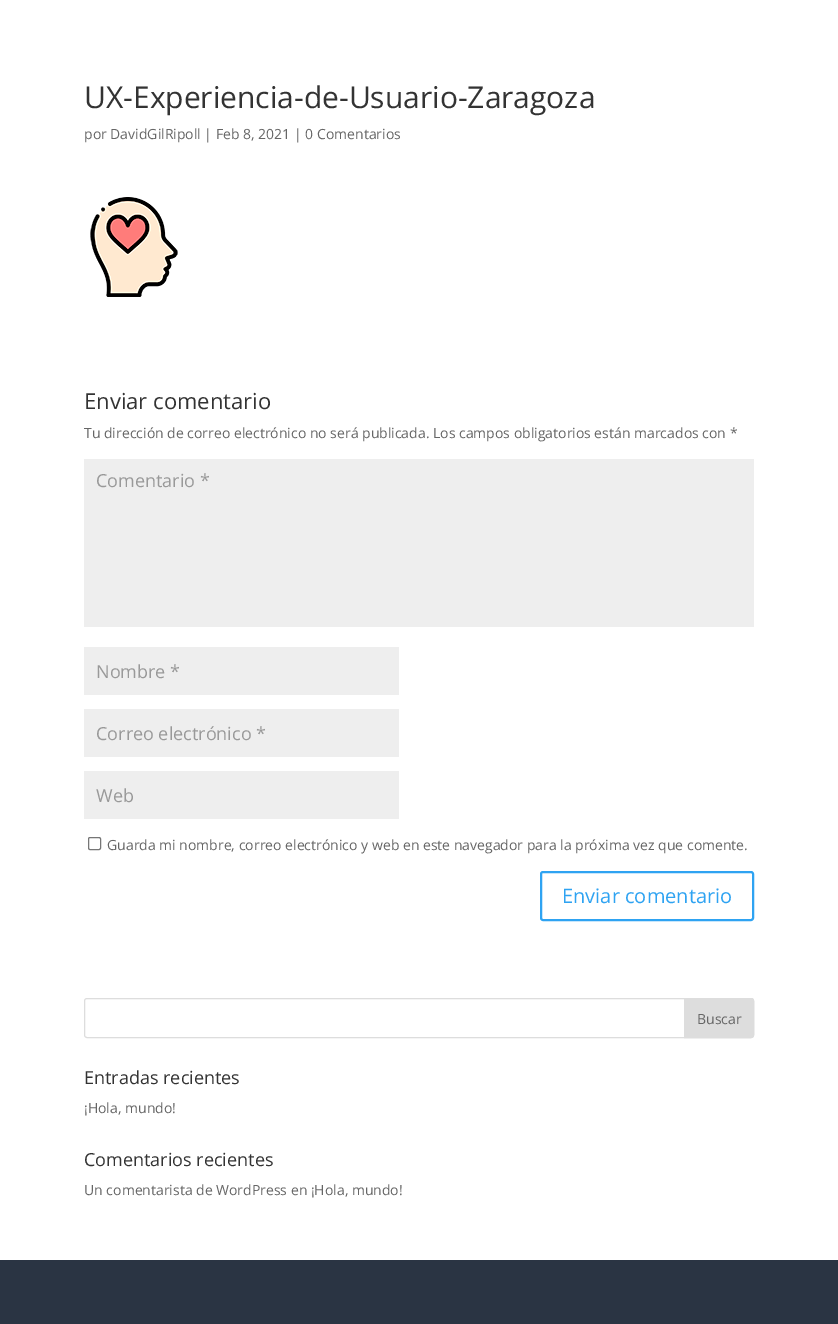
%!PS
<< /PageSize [838 1324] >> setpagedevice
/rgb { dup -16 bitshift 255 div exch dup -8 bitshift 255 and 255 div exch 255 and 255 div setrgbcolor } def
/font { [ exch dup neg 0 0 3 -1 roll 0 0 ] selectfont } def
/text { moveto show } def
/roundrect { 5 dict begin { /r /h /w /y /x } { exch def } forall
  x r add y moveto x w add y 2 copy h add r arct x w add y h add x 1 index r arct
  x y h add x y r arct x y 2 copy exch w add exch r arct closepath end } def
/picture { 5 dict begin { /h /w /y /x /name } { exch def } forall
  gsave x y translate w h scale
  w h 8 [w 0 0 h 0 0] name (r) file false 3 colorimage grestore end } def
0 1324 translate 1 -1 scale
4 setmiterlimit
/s1 { /OpenSans-Regular 30 font 16#333333 rgb } def
/s2 { /OpenSans-Regular 14 font 16#666666 rgb } def
/s3 { /OpenSans-Regular 22 font 16#333333 rgb } def
/s4 { /OpenSans-Regular 18 font 16#999999 rgb } def
/s5 { /OpenSans-Regular 20 font 16#2EA3F2 rgb } def
/s6 { /OpenSans-Regular 18 font 16#333333 rgb } def
16#FFFFFF rgb
0 0 838 1324 rectfill
s1
(UX-Experiencia-de-Usuario-Zaragoza) 84 108 text
s2
(por DavidGilRipoll | Feb 8, 2021 | 0 Comentarios) 84 139 text
(pic1.raw) 90 197 88 100 picture
s3
(Enviar comentario) 84 409 text
s2
(Tu dirección de correo electrónico no será publicada. Los campos obligatorios están marcados con *) 84 438 text
16#EEEEEE rgb
84 459 670 168 rectfill
s4
(Comentario *) 96 487 text
16#EEEEEE rgb
84 647 315 48 rectfill
s4
(Nombre *) 96 678 text
16#EEEEEE rgb
84 709 315 48 rectfill
s4
(Correo electrónico *) 96 740 text
16#EEEEEE rgb
84 771 315 48 rectfill
s4
(Web) 96 802 text
16#767676 rgb
88.5 837.5 12 12 1.5 roundrect stroke
s2
(Guarda mi nombre, correo electrónico y web en este navegador para la próxima vez que comente.) 107 850 text
16#2EA3F2 rgb
2 setlinewidth
541 872 212 48 2 roundrect stroke
s5
(Enviar comentario) 562 903 text
16#DDDDDD rgb
1 setlinewidth
84.5 998.5 669 39 2.5 roundrect stroke
684.5 998.5 moveto 751 998.5 lineto 752.5 998.5 753.5 999.5 753.5 1001 curveto 753.5 1035 lineto 753.5 1036.5 752.5 1037.5 751 1037.5 curveto 684.5 1037.5 lineto closepath gsave fill grestore
stroke
s2
(Buscar) 697 1024 text
s6
(Entradas recientes) 84 1084 text
s2
(¡Hola, mundo!) 84 1113 text
s6
(Comentarios recientes) 84 1166 text
s2
(Un comentarista de WordPress en ¡Hola, mundo!) 84 1195 text
16#2A3443 rgb
0 1260 838 64 rectfill
showpage
